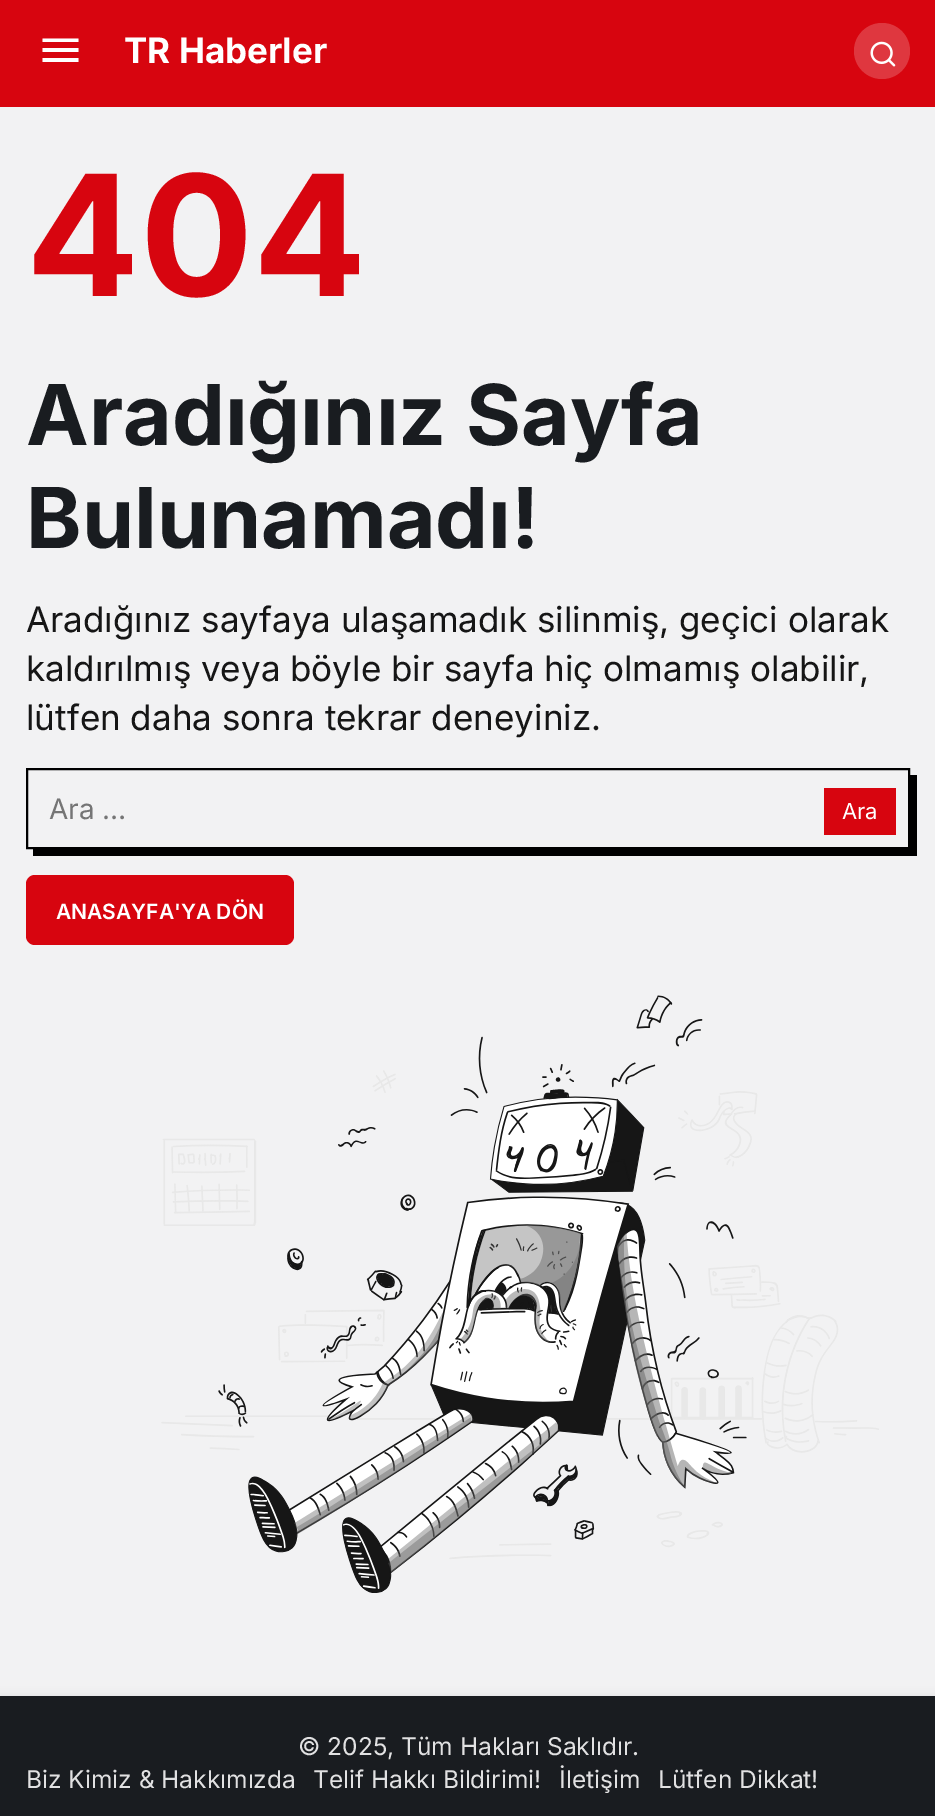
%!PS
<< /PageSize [935 1816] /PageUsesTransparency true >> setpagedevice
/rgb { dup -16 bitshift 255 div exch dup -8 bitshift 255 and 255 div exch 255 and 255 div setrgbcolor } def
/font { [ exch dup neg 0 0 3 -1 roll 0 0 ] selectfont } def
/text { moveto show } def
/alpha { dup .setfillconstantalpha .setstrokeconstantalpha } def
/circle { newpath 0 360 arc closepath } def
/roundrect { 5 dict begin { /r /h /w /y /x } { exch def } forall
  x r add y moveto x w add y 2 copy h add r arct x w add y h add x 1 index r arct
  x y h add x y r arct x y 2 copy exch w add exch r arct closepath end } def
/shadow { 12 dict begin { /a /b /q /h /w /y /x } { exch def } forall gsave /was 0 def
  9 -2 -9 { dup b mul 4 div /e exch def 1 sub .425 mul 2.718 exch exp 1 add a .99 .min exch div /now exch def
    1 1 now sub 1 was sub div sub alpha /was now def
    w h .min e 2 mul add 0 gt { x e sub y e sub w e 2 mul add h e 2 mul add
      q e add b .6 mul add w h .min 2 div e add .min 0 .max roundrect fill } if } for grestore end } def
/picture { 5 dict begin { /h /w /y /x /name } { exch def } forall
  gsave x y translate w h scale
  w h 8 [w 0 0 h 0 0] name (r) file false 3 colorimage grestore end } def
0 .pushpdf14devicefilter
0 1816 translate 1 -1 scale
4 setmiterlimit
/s1 { /Inter-Bold 35 font 16#FFFFFF rgb } def
/s2 { /Inter-Bold 168 font 16#D7050F rgb } def
/s3 { /Inter-Bold 84 font 16#191C20 rgb } def
/s4 { /Inter-Regular 35 font 16#161616 rgb } def
/s5 { /Inter-Regular 28 font 16#757575 rgb } def
/s6 { /Inter-Regular 22 font 16#FFFFFF rgb } def
/s7 { /Inter-SemiBold 21 font 16#FFFFFF rgb } def
/s8 { /Inter-Regular 24.5 font 16#E1E1E2 rgb } def
16#F2F2F3 rgb
0 0 935 1816 rectfill
16#D7050F rgb
0 0 935 107 rectfill
16#FFFFFF rgb
42.5 38.5 moveto 78.5 38.5 lineto 78.5 42 lineto 42.5 42 lineto closepath 42.5 52 moveto 42.5 48 lineto 78.5 48 lineto 78.5 52 lineto closepath 42.5 62 moveto 42.5 58 lineto 78.5 58 lineto 78.5 62 lineto closepath fill
s1
(TR Haberler) 124 63 text
16#DF373F rgb
882 51 28 circle fill
(pic1.raw) 870 41 26 26 picture
s2
(404) 26 296 text
s3
(Aradığınız Sayfa) 26 445 text
(Bulunamadı!) 26 548 text
s4
(Aradığınız sayfaya ulaşamadık silinmiş, geçici olarak) 26 632 text
(kaldırılmış veya böyle bir sayfa hiç olmamış olabilir,) 26 681 text
(lütfen daha sonra tekrar deneyiniz.) 26 730 text
16#000000 rgb
33 849 moveto 33 856 lineto 917 856 lineto 917 775 lineto 910 775 lineto 910 849 lineto closepath fill
2 setlinewidth
27 769 882 79 rectstroke
s5
(Ara …) 49 819 text
16#D7050F rgb
824 788 72 47 rectfill
s6
(Ara) 842 819 text
16#D7050F rgb
26 875 268 70 9 roundrect fill
s7
(ANASAYFA'YA DÖN) 56 919 text
(pic2.raw) 161 995 718 598 picture
16#32353D rgb
0 1696 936 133 0 4.5 0.1 shadow
16#191C20 rgb
0 1696 935 120 rectfill
s8
(© 2025, Tüm Hakları Saklıdır.) 298 1755 text
(Biz Kimiz & Hakkımızda) 26 1788 text
(Telif Hakkı Bildirimi!) 313 1788 text
(İletişim) 559 1788 text
(Lütfen Dikkat!) 658 1788 text
.poppdf14devicefilter showpage
